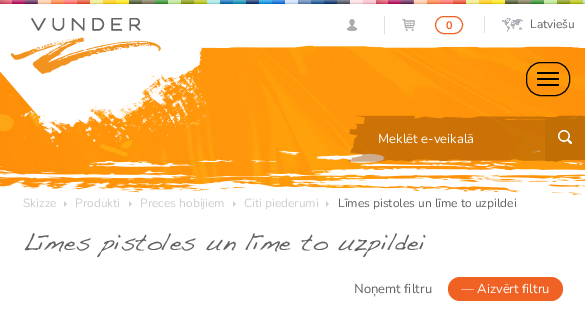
%!PS
<< /PageSize [585 309] >> setpagedevice
/rgb { dup -16 bitshift 255 div exch dup -8 bitshift 255 and 255 div exch 255 and 255 div setrgbcolor } def
/font { [ exch dup neg 0 0 3 -1 roll 0 0 ] selectfont } def
/text { moveto show } def
/roundrect { 5 dict begin { /r /h /w /y /x } { exch def } forall
  x r add y moveto x w add y 2 copy h add r arct x w add y h add x 1 index r arct
  x y h add x y r arct x y 2 copy exch w add exch r arct closepath end } def
/picture { 5 dict begin { /h /w /y /x /name } { exch def } forall
  gsave x y translate w h scale
  w h 8 [w 0 0 h 0 0] name (r) file false 3 colorimage grestore end } def
0 309 translate 1 -1 scale
4 setmiterlimit
/s1 { /Nunito-Bold 11 font 16#EF6223 rgb } def
/s2 { /Nunito-Regular 12 font 16#616161 rgb } def
/s3 { /Nunito-Regular 13 font 16#FFFFFF rgb } def
/s4 { /Nunito-Regular 12 font 16#CECECE rgb } def
/s5 { /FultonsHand-Thin 24 font 16#616161 rgb } def
/s6 { /Nunito-Regular 13 font 16#616161 rgb } def
16#FFFFFF rgb
0 0 585 309 rectfill
(pic1.raw) 0 40 585 155 picture
(pic2.raw) 0 0 585 4 picture
(pic3.raw) 0 41 207 106 picture
(pic4.raw) 11 18 150 56 picture
(pic5.raw) 347 19 10 12 picture
16#E0E0E0 rgb
384 16 1 18 rectfill
(pic6.raw) 402 19 13 12 picture
16#EF6223 rgb
435.5 16.5 27 17 8.5 roundrect stroke
s1
(0) 446 29 text
16#E0E0E0 rgb
484 16 1 17 rectfill
(pic7.raw) 502 18 21 14 picture
s2
(Latviešu) 530 28 text
16#000000 rgb
526.5 62.5 43 33 14.5 roundrect stroke
537 72 22 2 1 roundrect fill
537 78 22 2 1 roundrect fill
537 84 22 2 1 roundrect fill
(pic11.raw) 0 150 585 159 picture
(pic8.raw) 348 115 197 47 picture
s3
(Meklēt e-veikalā) 378 143 text
(pic9.raw) 545 115 40 47 picture
(pic10.raw) 558 130 14 14 picture
s4
(Skizze) 23 207 text
(pic12.raw) 64 201 3 6 picture
(Produkti) 75 207 text
(pic12.raw) 129 201 3 6 picture
(Preces hobijiem) 140 207 text
(pic12.raw) 233 201 3 6 picture
(Citi piederumi) 244 207 text
(pic12.raw) 326 201 3 6 picture
s2
(Līmes pistoles un līme to uzpildei) 338 207 text
s5
(Līmes pistoles un līme to uzpildei) 23 250 text
s6
(Noņemt filtru) 354 293 text
16#EF6223 rgb
448 277 115 24 12 roundrect fill
s3
(— Aizvērt filtru) 461 293 text
showpage
